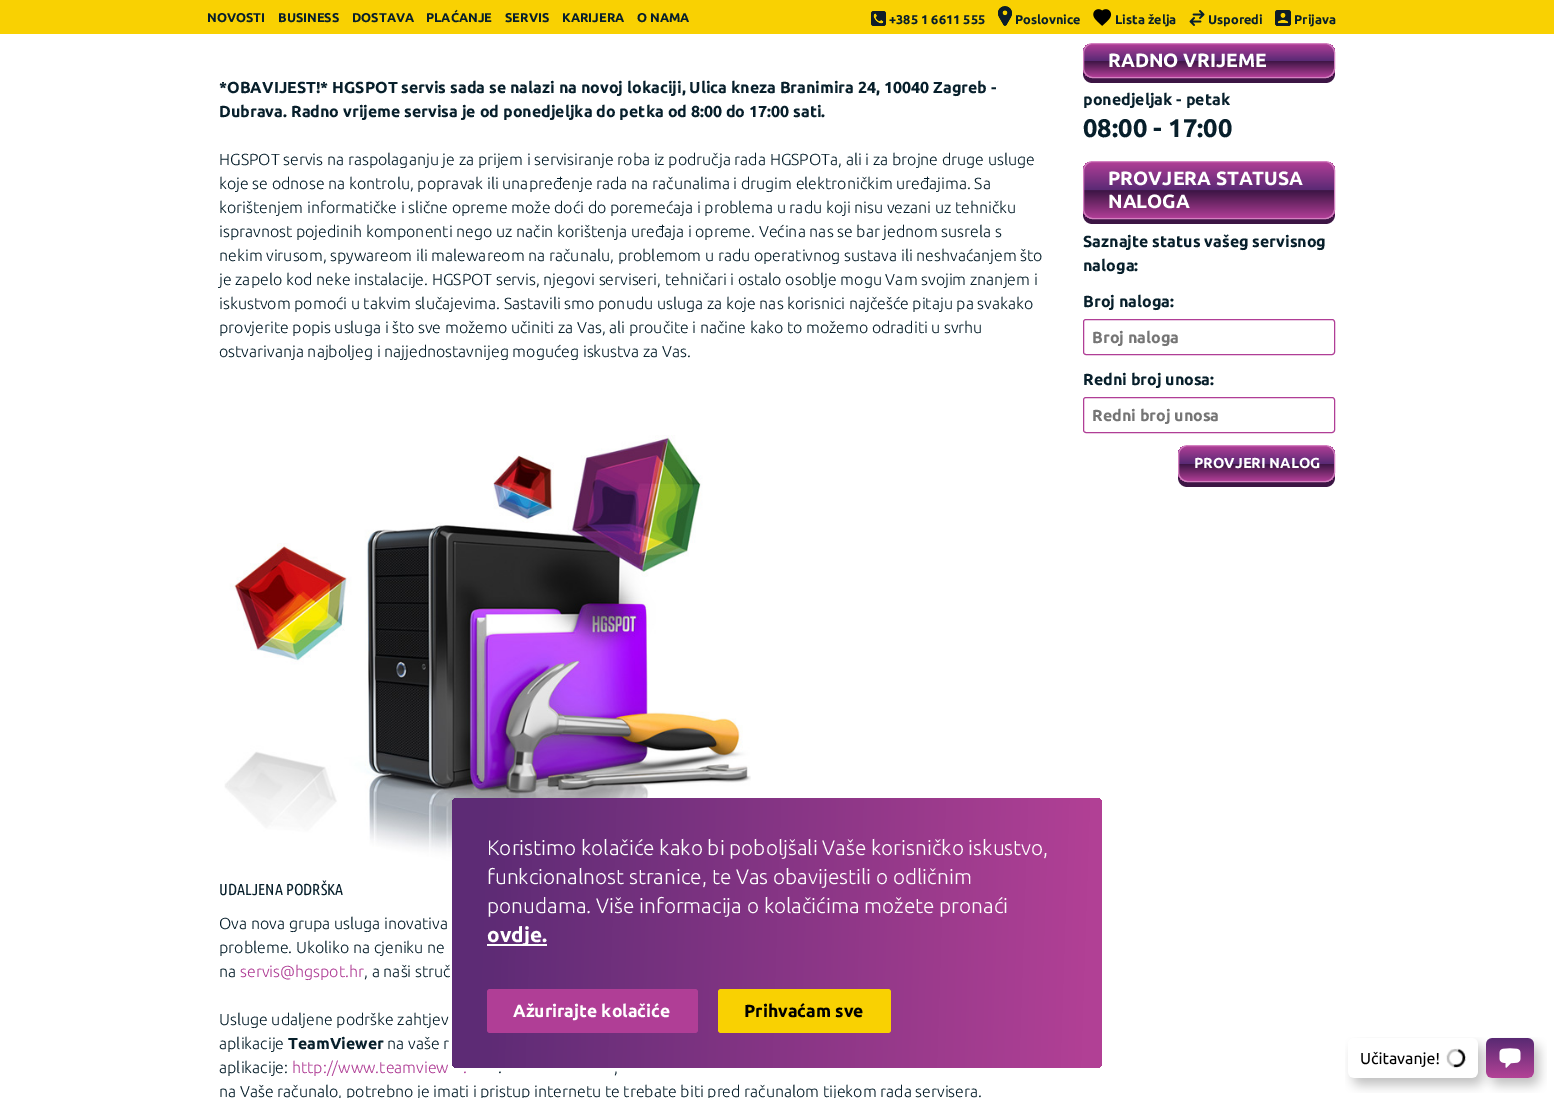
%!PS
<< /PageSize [1554 1098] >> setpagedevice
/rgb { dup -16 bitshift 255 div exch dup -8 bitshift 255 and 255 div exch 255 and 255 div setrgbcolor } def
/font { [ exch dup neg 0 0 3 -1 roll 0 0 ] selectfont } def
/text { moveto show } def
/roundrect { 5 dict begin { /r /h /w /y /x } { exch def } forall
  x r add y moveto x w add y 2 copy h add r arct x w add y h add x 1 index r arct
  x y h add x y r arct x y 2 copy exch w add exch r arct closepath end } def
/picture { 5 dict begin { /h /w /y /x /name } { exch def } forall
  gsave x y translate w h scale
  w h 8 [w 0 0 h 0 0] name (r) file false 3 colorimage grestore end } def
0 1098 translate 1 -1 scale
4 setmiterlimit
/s1 { /Ubuntu-Bold 12.75 font 16#071F2B rgb } def
/s2 { /Ubuntu-Bold 16 font 16#071F2B rgb } def
/s3 { /Ubuntu-Light 16 font 16#071F2B rgb } def
/s4 { /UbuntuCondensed-Regular 16 font 16#071F2B rgb } def
/s5 { /Ubuntu-Light 16 font 16#B03E96 rgb } def
/s6 { /Ubuntu-Bold 19.25 font 16#FFFFFF rgb } def
/s7 { /Ubuntu-Bold 25.5 font 16#071F2B rgb } def
/s8 { /Ubuntu-Bold 16 font 16#757575 rgb } def
/s9 { /Ubuntu-Bold 14.5 font 16#FFFFFF rgb } def
/s10 { /Ubuntu-Light 20.8 font 16#FFFFFF rgb } def
/s11 { /Ubuntu-Bold 20.8 font 16#FFFFFF rgb } def
/s12 { /Ubuntu-Bold 17.5 font 16#FFFFFF rgb } def
/s13 { /Ubuntu-Bold 17.5 font 16#000000 rgb } def
16#FFFFFF rgb
0 0 1554 1098 rectfill
16#F9D102 rgb
0 0 1554 34 rectfill
s1
(NOVOSTI) 207 22 text
(BUSINESS) 278 22 text
(DOSTAVA) 352 22 text
(PLAĆANJE) 426 22 text
(SERVIS) 505 22 text
(KARIJERA) 562 22 text
(O NAMA) 637 22 text
(pic1.raw) 871 11 15 15 picture
(+385 1 6611 555) 889 24 text
(pic2.raw) 998 6 14 20 picture
(Poslovnice) 1015 24 text
(pic3.raw) 1093 9 19 17 picture
(Lista želja) 1115 24 text
(pic4.raw) 1189 10 16 16 picture
(Usporedi) 1208 24 text
(pic5.raw) 1275 10 16 16 picture
(Prijava) 1294 24 text
s2
(*OBAVIJEST!* HGSPOT servis sada se nalazi na novoj lokaciji, Ulica kneza Branimira 24, 10040 Zagreb -) 219 93 text
(Dubrava. Radno vrijeme servisa je od ponedjeljka do petka od 8:00 do 17:00 sati.) 219 117 text
s3
(HGSPOT servis na raspolaganju je za prijem i servisiranje roba iz područja rada HGSPOTa, ali i za brojne druge usluge) 219 165 text
(koje se odnose na kontrolu, popravak ili unapređenje rada na računalima i drugim elektroničkim uređajima. Sa) 219 189 text
(korištenjem informatičke i slične opreme može doći do poremećaja i problema u radu koji nisu vezani uz tehničku) 219 213 text
(ispravnost pojedinih komponenti nego uz način korištenja uređaja i opreme. Većina nas se bar jednom susrela s) 219 237 text
(nekim virusom, spywareom ili malewareom na računalu, problemom u radu operativnog sustava ili neshvaćanjem što) 219 261 text
(je zapelo kod neke instalacije. HGSPOT servis, njegovi serviseri, tehničari i ostalo osoblje mogu Vam svojim znanjem i) 219 285 text
(iskustvom pomoći u takvim slučajevima. Sastavili smo ponudu usluga za koje nas korisnici najčešće pitaju pa svakako) 219 309 text
(provjerite popis usluga i što sve možemo učiniti za Vas, ali proučite i načine kako to možemo odraditi u svrhu) 219 333 text
(ostvarivanja najboljeg i najjednostavnijeg mogućeg iskustva za Vas.) 219 357 text
(pic6.raw) 224 435 527 427 picture
s4
(UDALJENA PODRŠKA) 219 895 text
s3
(Ova nova grupa usluga inovativa) 219 929 text
(probleme. Ukoliko na cjeniku ne) 219 953 text
(na) 219 977 text
s5
(servis@hgspot.hr) 240 977 text
s3
(, a naši struč) 364 977 text
(Usluge udaljene podrške zahtjev) 219 1025 text
(aplikacije) 219 1049 text
s2
(TeamViewer) 288 1049 text
s3
(na vaše r) 387 1049 text
(aplikacije:) 219 1073 text
s5
(http://www.teamview) 292 1073 text
(.) 463 1073 text
s3
(.) 498 1073 text
(,) 614 1073 text
(na Vaše računalo, potrebno je imati i pristup internetu te trebate biti pred računalom tijekom rada servisera.) 219 1097 text
16#3C1544 rgb
1083 68 moveto 1083 73 lineto 1083 79 1087 83 1093 83 curveto 1325 83 lineto 1331 83 1335 79 1335 73 curveto 1335 68 lineto 1335 74 1331 78 1325 78 curveto 1093 78 lineto 1087 78 1083 74 1083 68 curveto closepath fill
gsave
1083 43 252 35 10 roundrect clip newpath
gsave 1083 44 moveto 1335 44 lineto 1335 77 lineto 1083 77 lineto closepath clip newpath
<< /ShadingType 2 /ColorSpace /DeviceRGB /Coords [1209 44 1209 77] /Extend [true true] /Function << /FunctionType 3 /Domain [0 1] /Functions [<< /FunctionType 2 /Domain [0 1] /C0 [0.69 0.243 0.588] /C1 [0.353 0.165 0.459] /N 1 >> << /FunctionType 2 /Domain [0 1] /C0 [0.353 0.165 0.459] /C1 [0.235 0.082 0.267] /N 1 >> << /FunctionType 2 /Domain [0 1] /C0 [0.235 0.082 0.267] /C1 [0.69 0.243 0.588] /N 1 >>] /Bounds [0.5 0.51] /Encode [0 1 0 1 0 1] >> >> shfill grestore
grestore
16#D381C0 rgb
1083.5 43.5 251 34 9.5 roundrect stroke
s6
(RADNO VRIJEME) 1108 67 text
s2
(ponedjeljak - petak) 1083 105 text
s7
(08:00 - 17:00) 1083 137 text
16#3C1544 rgb
1083 209 moveto 1083 214 lineto 1083 220 1087 224 1093 224 curveto 1325 224 lineto 1331 224 1335 220 1335 214 curveto 1335 209 lineto 1335 215 1331 219 1325 219 curveto 1093 219 lineto 1087 219 1083 215 1083 209 curveto closepath fill
gsave
1083 161 252 58 10 roundrect clip newpath
gsave 1083 162 moveto 1335 162 lineto 1335 218 lineto 1083 218 lineto closepath clip newpath
<< /ShadingType 2 /ColorSpace /DeviceRGB /Coords [1209 162 1209 218] /Extend [true true] /Function << /FunctionType 3 /Domain [0 1] /Functions [<< /FunctionType 2 /Domain [0 1] /C0 [0.69 0.243 0.588] /C1 [0.353 0.165 0.459] /N 1 >> << /FunctionType 2 /Domain [0 1] /C0 [0.353 0.165 0.459] /C1 [0.235 0.082 0.267] /N 1 >> << /FunctionType 2 /Domain [0 1] /C0 [0.235 0.082 0.267] /C1 [0.69 0.243 0.588] /N 1 >>] /Bounds [0.5 0.51] /Encode [0 1 0 1 0 1] >> >> shfill grestore
grestore
16#D381C0 rgb
1083.5 161.5 251 57 9.5 roundrect stroke
s6
(PROVJERA STATUSA) 1108 185 text
(NALOGA) 1108 208 text
s2
(Saznajte status vašeg servisnog) 1083 247 text
(naloga:) 1083 271 text
(Broj naloga:) 1083 307 text
16#B03E96 rgb
1083.5 319.5 251 35 2.5 roundrect stroke
s8
(Broj naloga) 1092 343 text
s2
(Redni broj unosa:) 1083 385 text
16#B03E96 rgb
1083.5 397.5 251 35 2.5 roundrect stroke
s8
(Redni broj unosa) 1092 421 text
16#3C1544 rgb
1178 472 moveto 1178 477 lineto 1178 483 1182 487 1188 487 curveto 1325 487 lineto 1331 487 1335 483 1335 477 curveto 1335 472 lineto 1335 478 1331 482 1325 482 curveto 1188 482 lineto 1182 482 1178 478 1178 472 curveto closepath fill
gsave
1178 445 157 37 10 roundrect clip newpath
gsave 1178 446 moveto 1335 446 lineto 1335 481 lineto 1178 481 lineto closepath clip newpath
<< /ShadingType 2 /ColorSpace /DeviceRGB /Coords [1257 446 1257 481] /Extend [true true] /Function << /FunctionType 3 /Domain [0 1] /Functions [<< /FunctionType 2 /Domain [0 1] /C0 [0.69 0.243 0.588] /C1 [0.353 0.165 0.459] /N 1 >> << /FunctionType 2 /Domain [0 1] /C0 [0.353 0.165 0.459] /C1 [0.235 0.082 0.267] /N 1 >> << /FunctionType 2 /Domain [0 1] /C0 [0.235 0.082 0.267] /C1 [0.69 0.243 0.588] /N 1 >>] /Bounds [0.5 0.51] /Encode [0 1 0 1 0 1] >> >> shfill grestore
grestore
16#D381C0 rgb
1178.5 445.5 156 36 9.5 roundrect stroke
s9
(PROVJERI NALOG) 1194 468 text
gsave 452 798 650 270 5 roundrect clip newpath
<< /ShadingType 2 /ColorSpace /DeviceRGB /Coords [448 922 1106 944] /Extend [true true] /Function << /FunctionType 3 /Domain [0 1] /Functions [<< /FunctionType 2 /Domain [0 1] /C0 [0.365 0.169 0.459] /C1 [0.365 0.169 0.459] /N 1 >> << /FunctionType 2 /Domain [0 1] /C0 [0.365 0.169 0.459] /C1 [0.694 0.251 0.584] /N 1 >> << /FunctionType 2 /Domain [0 1] /C0 [0.694 0.251 0.584] /C1 [0.694 0.251 0.584] /N 1 >>] /Bounds [0.05 0.97] /Encode [0 1 0 1 0 1] >> >> shfill grestore
s10
(Koristimo kolačiće kako bi poboljšali Vaše korisničko iskustvo,) 487 855 text
(funkcionalnost stranice, te Vas obavijestili o odličnim) 487 884 text
(ponudama. Više informacija o kolačićima možete pronaći) 487 913 text
487 944 60 2 rectfill
s11
(ovdje.) 487 942 text
16#B03E96 rgb
487 989 211 44 3 roundrect fill
s12
(Ažurirajte kolačiće) 513 1017 text
16#F9D102 rgb
718 989 173 44 3 roundrect fill
s13
(Prihvaćam sve) 744 1017 text
(pic7.raw) 1345 1037 202 56 picture
showpage
